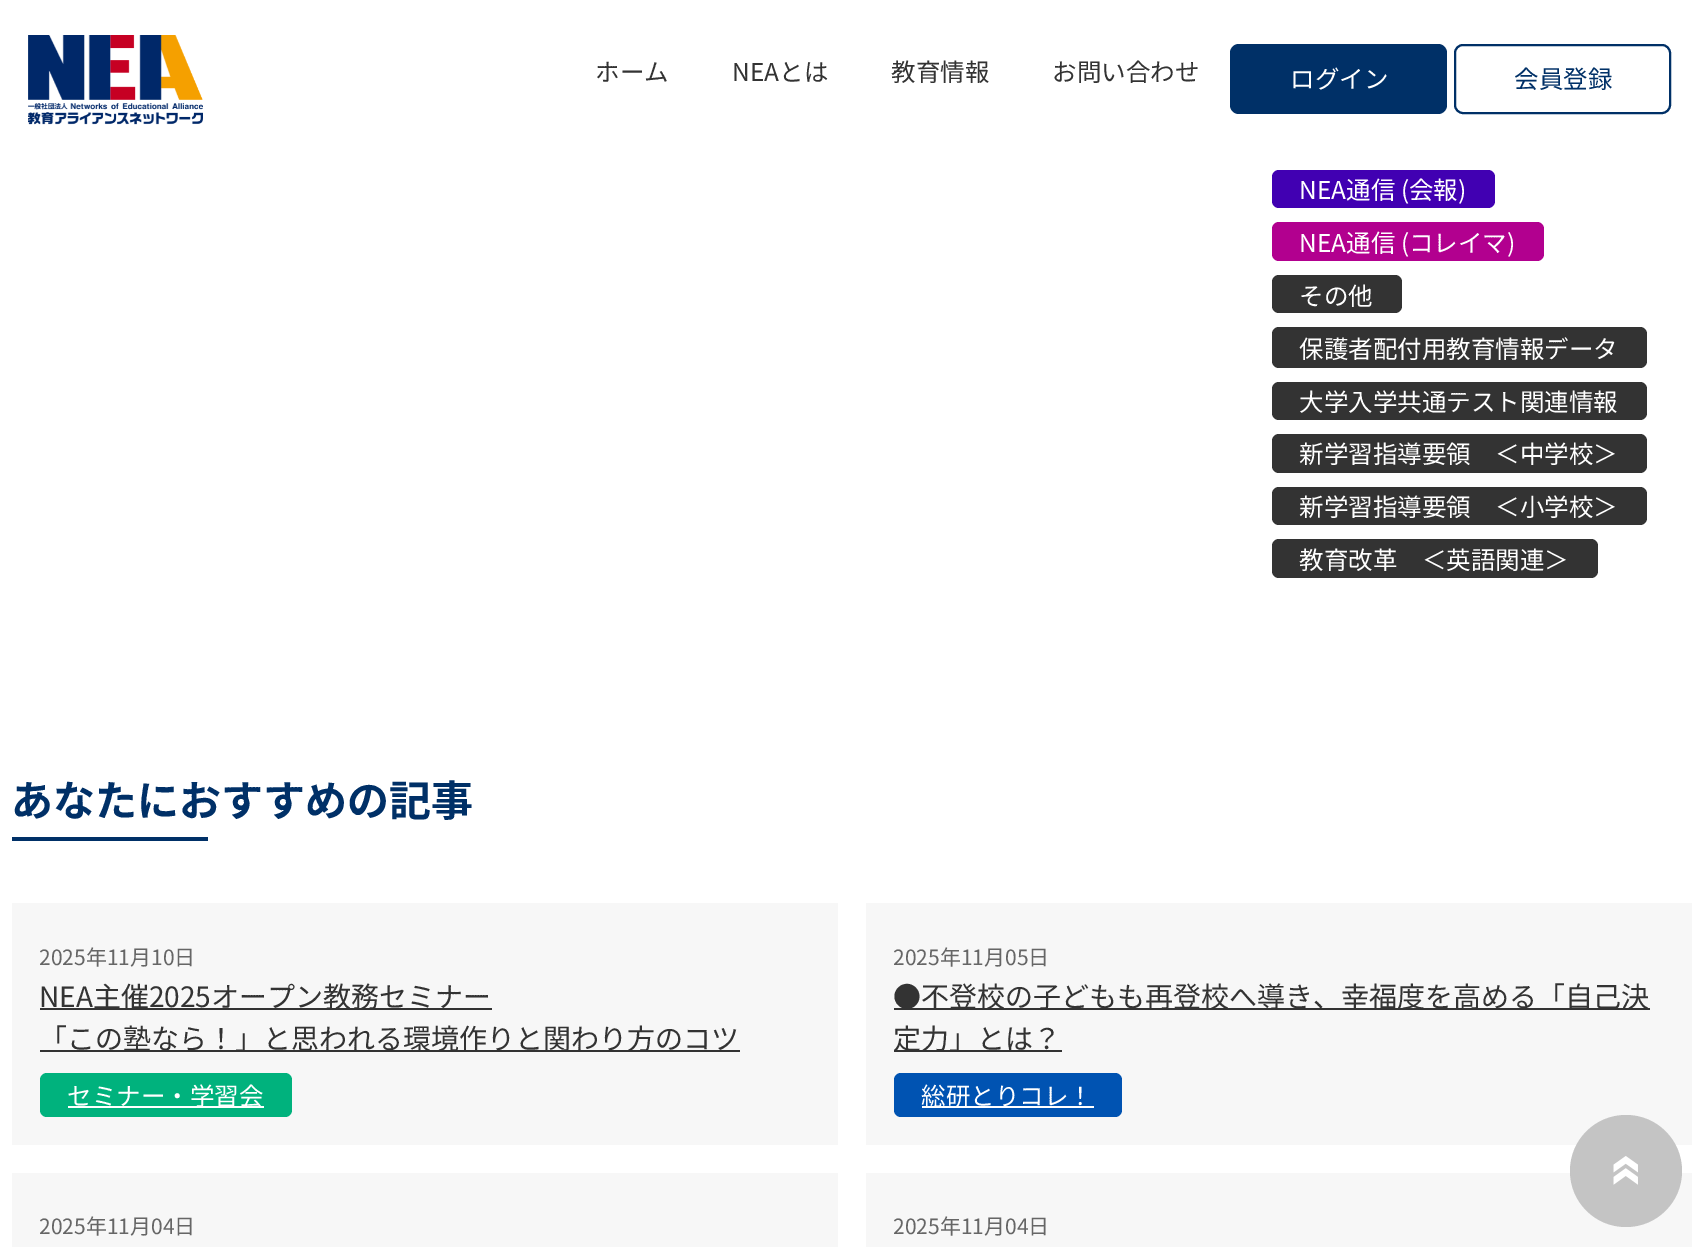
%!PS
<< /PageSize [1702 1247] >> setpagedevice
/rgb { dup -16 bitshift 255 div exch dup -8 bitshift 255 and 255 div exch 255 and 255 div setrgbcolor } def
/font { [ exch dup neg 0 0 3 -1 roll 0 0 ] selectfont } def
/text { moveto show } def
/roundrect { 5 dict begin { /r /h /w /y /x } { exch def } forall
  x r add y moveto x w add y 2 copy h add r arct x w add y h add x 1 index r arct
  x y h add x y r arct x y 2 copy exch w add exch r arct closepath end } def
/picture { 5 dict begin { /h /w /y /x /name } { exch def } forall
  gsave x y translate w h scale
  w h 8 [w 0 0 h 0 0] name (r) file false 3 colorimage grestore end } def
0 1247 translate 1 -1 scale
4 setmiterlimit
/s1 { /NotoSansJP-Regular 24.5 font 16#333333 rgb } def
/s2 { /NotoSansJP-Regular 24.5 font 16#FFFFFF rgb } def
/s3 { /NotoSansJP-Regular 24.5 font 16#003067 rgb } def
/s4 { /NotoSansJP-Bold 42 font 16#003067 rgb } def
/s5 { /NotoSansJP-Regular 21 font 16#666666 rgb } def
/s6 { /NotoSansJP-Regular 28 font 16#333333 rgb } def
16#FFFFFF rgb
0 0 1702 1247 rectfill
(pic1.raw) 28 35 175 90 picture
s1
(ホーム) 595 81 text
(NEAとは) 732 81 text
(教育情報) 891 81 text
(お問い合わせ) 1052 81 text
16#003067 rgb
1230 44 217 70 9 roundrect fill
s2
(ログイン) 1290 88 text
16#003067 rgb
2 setlinewidth
1455 45 215 68 8 roundrect stroke
(会員登録) 1514 88 text
16#4100B2 rgb
1272 170 223 38 7 roundrect fill
s2
(NEA通信 \(会報\)) 1299 199 text
16#B2008F rgb
1272 222 272 39 7 roundrect fill
s2
(NEA通信 \(コレイマ\)) 1299 252 text
16#333333 rgb
1272 275 130 38 7 roundrect fill
s2
(その他) 1299 305 text
16#333333 rgb
1272 327 375 41 7 roundrect fill
s2
(保護者配付用教育情報データ) 1299 358 text
16#333333 rgb
1272 382 375 38 7 roundrect fill
s2
(大学入学共通テスト関連情報) 1299 411 text
16#333333 rgb
1272 434 375 39 7 roundrect fill
s2
(新学習指導要領　＜中学校＞) 1299 463 text
16#333333 rgb
1272 487 375 38 7 roundrect fill
s2
(新学習指導要領　＜小学校＞) 1299 516 text
16#333333 rgb
1272 539 326 39 7 roundrect fill
s2
(教育改革　＜英語関連＞) 1299 569 text
s4
(あなたにおすすめの記事) 11 816 text
12 837 196 4 rectfill
16#F7F7F7 rgb
12 903 826 242 rectfill
s5
(2025年11月10日) 39 965 text
16#333333 rgb
40 1008 452 2 rectfill
s6
(NEA主催2025オープン教務セミナー) 39 1007 text
40 1050 700 2 rectfill
(「この塾なら！」と思われる環境作りと関わり方のコツ) 39 1049 text
16#00B27D rgb
40 1073 252 44 7 roundrect fill
16#FFFFFF rgb
68 1106 196 2 rectfill
s2
(セミナー・学習会) 67 1105 text
16#F7F7F7 rgb
866 903 826 242 rectfill
s5
(2025年11月05日) 893 965 text
16#333333 rgb
894 1008 756 2 rectfill
s6
(●不登校の子どもも再登校へ導き、幸福度を高める「自己決) 893 1007 text
894 1050 168 2 rectfill
(定力」とは？) 893 1049 text
16#0053B2 rgb
894 1073 228 44 7 roundrect fill
16#FFFFFF rgb
922 1106 172 2 rectfill
s2
(総研とりコレ！) 921 1105 text
16#F7F7F7 rgb
12 1173 826 74 rectfill
s5
(2025年11月04日) 39 1234 text
16#F7F7F7 rgb
866 1173 826 74 rectfill
s5
(2025年11月04日) 893 1234 text
16#C4C4C4 rgb
1570 1171 moveto 1570 1140 1595 1115 1626 1115 curveto 1657 1115 1682 1140 1682 1171 curveto 1682 1202 1657 1227 1626 1227 curveto 1595 1227 1570 1202 1570 1171 curveto closepath fill
(pic2.raw) 1613 1156 25 29 picture
showpage
